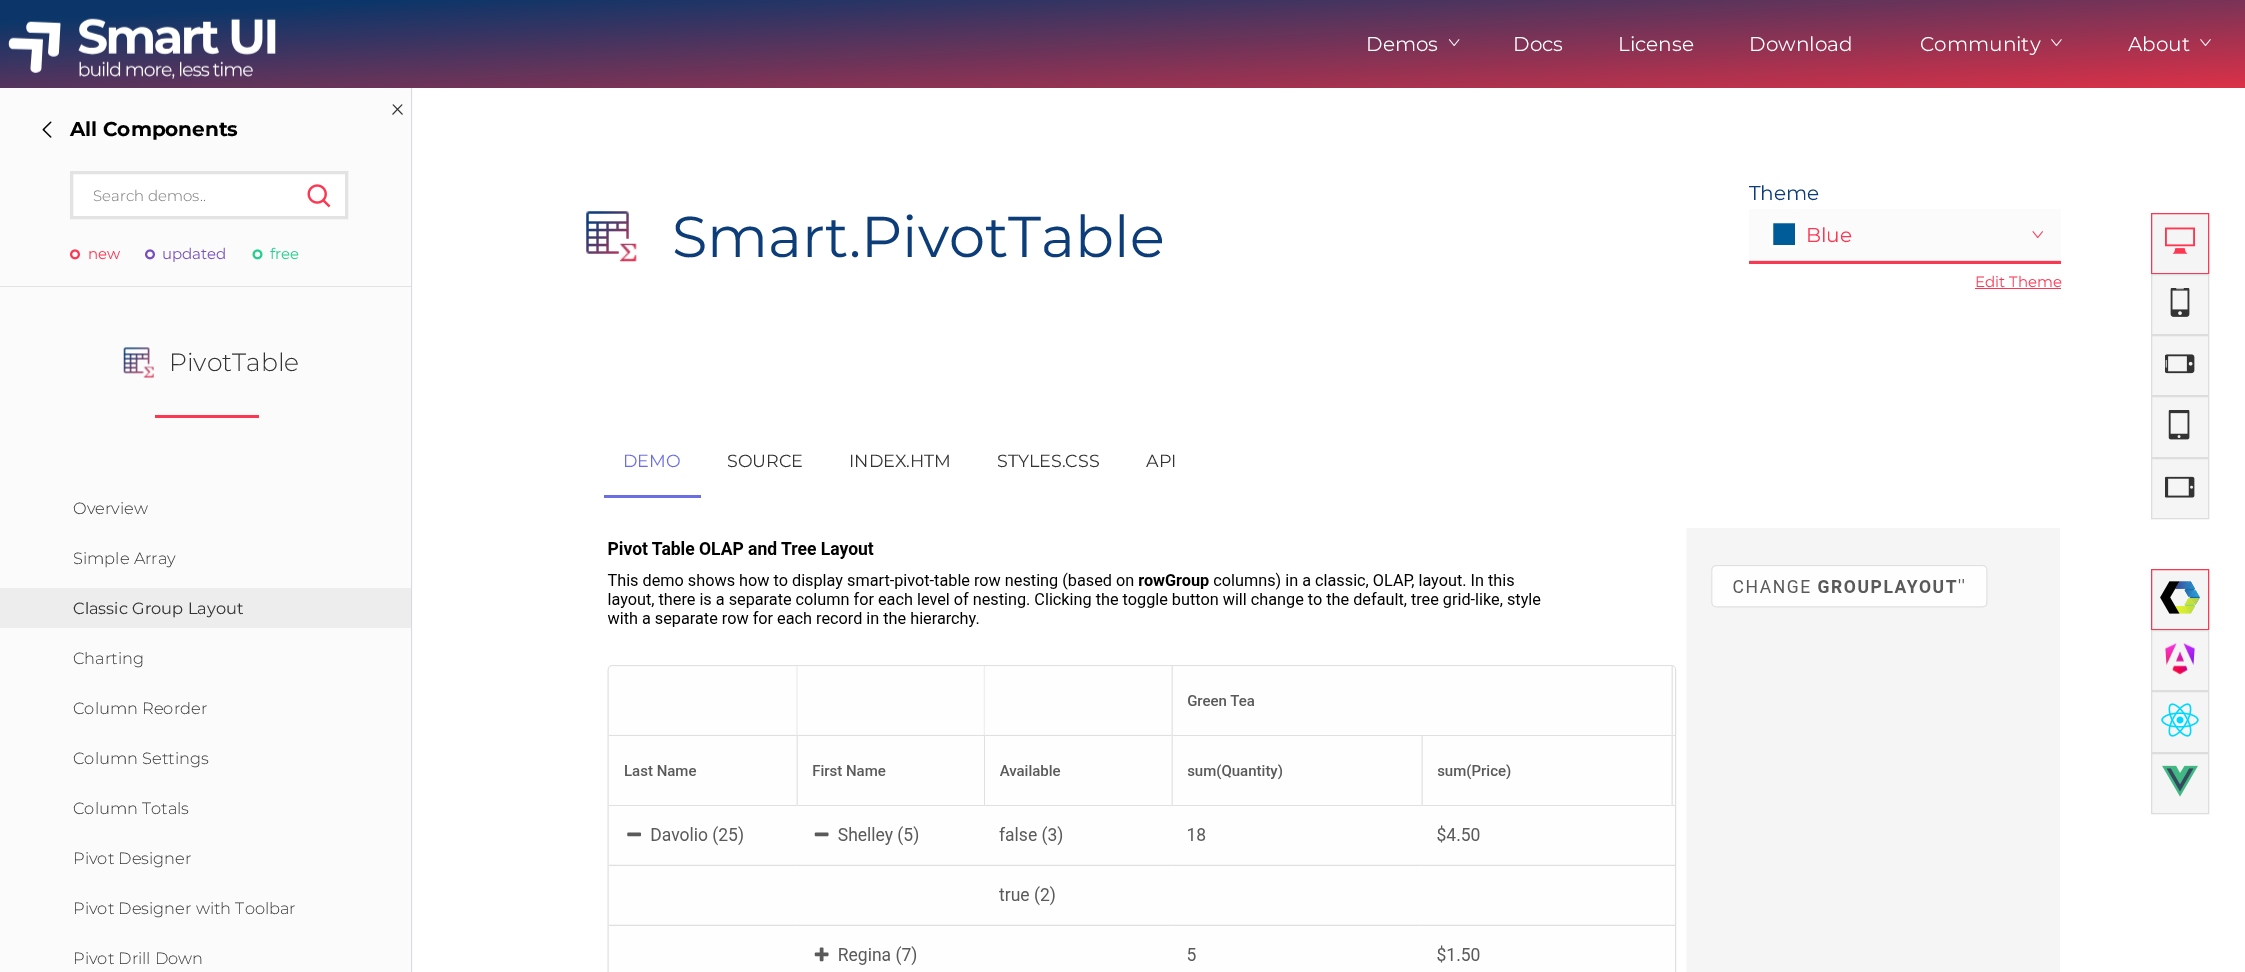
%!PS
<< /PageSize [2245 972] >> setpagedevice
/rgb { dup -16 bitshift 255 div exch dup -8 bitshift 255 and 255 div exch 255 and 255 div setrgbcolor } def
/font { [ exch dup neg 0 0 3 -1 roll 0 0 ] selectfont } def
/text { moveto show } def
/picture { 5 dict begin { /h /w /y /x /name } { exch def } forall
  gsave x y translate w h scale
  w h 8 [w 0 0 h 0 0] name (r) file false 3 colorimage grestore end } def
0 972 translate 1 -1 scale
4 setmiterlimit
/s1 { /Montserrat-Regular 20 font 16#FFFFFF rgb } def
/s2 { /Montserrat-Bold 20 font 16#000000 rgb } def
/s3 { /Montserrat-Light 15 font 16#757575 rgb } def
/s4 { /Montserrat-Regular 15 font 16#FC3752 rgb } def
/s5 { /Montserrat-Regular 15 font 16#764EBE rgb } def
/s6 { /Montserrat-Regular 15 font 16#24CE8D rgb } def
/s7 { /Montserrat-Light 25 font 16#333333 rgb } def
/s8 { /Montserrat-Light 16.25 font 16#333333 rgb } def
/s9 { /Montserrat-Regular 16.25 font 16#333333 rgb } def
/s10 { /Montserrat-Regular 57.5 font 16#0C3D78 rgb } def
/s11 { /Montserrat-Regular 20 font 16#0C3D78 rgb } def
/s12 { /Montserrat-Regular 20 font 16#FC3752 rgb } def
/s13 { /Montserrat-Regular 17.5 font 16#6A6EE2 rgb } def
/s14 { /Montserrat-Regular 17.5 font 16#333333 rgb } def
16#FFFFFF rgb
0 0 2245 972 rectfill
gsave 0 0 moveto 2245 0 lineto 2245 88 lineto 0 88 lineto closepath clip newpath
<< /ShadingType 2 /ColorSpace /DeviceRGB /Coords [1117 -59 1128 146] /Extend [true true] /Function << /FunctionType 3 /Domain [0 1] /Functions [<< /FunctionType 2 /Domain [0 1] /C0 [0.047 0.212 0.412] /C1 [0.047 0.212 0.412] /N 1 >> << /FunctionType 2 /Domain [0 1] /C0 [0.047 0.212 0.412] /C1 [0.855 0.192 0.282] /N 1 >>] /Bounds [0.1] /Encode [0 1 0 1] >> >> shfill grestore
(pic1.raw) 8 18 268 61 picture
s1
(Demos) 1366 51 text
(pic2.raw) 1448 39 12 8 picture
(Docs) 1513 51 text
(License) 1618 51 text
(Download) 1749 51 text
(Community) 1920 51 text
(pic3.raw) 2051 39 11 8 picture
(About) 2128 51 text
(pic4.raw) 2200 39 11 8 picture
16#FBFBFC rgb
0 88 413 884 rectfill
(pic5.raw) 392 104 11 11 picture
16#DADADC rgb
411 88 1 884 rectfill
16#E3E3E3 rgb
0 286 411 1 rectfill
(pic6.raw) 42 121 10 17 picture
s2
(All Components) 70 136 text
16#FFFFFF rgb
71.5 172.5 moveto 346.5 172.5 lineto 346.5 217.5 lineto 71.5 217.5 lineto closepath gsave fill grestore
16#E3E3E3 rgb
3 setlinewidth
stroke
s3
(Search demos..) 93 201 text
(pic7.raw) 307 184 24 24 picture
(pic8.raw) 70 249 10 11 picture
s4
(new) 88 259 text
(pic9.raw) 145 249 10 11 picture
s5
(updated) 162 259 text
(pic10.raw) 252 249 11 11 picture
s6
(free) 270 259 text
(pic11.raw) 123 347 31 31 picture
s7
(PivotTable) 169 371 text
16#FC3752 rgb
155 415 104 3 rectfill
s8
(Overview) 73 514 text
(Simple Array) 73 564 text
16#EDEDED rgb
0 588 411 40 rectfill
s9
(Classic Group Layout) 73 614 text
s8
(Charting) 73 664 text
(Column Reorder) 73 714 text
(Column Settings) 73 764 text
(Column Totals) 73 814 text
(Pivot Designer) 73 864 text
(Pivot Designer with Toolbar) 73 914 text
(Pivot Drill Down) 73 964 text
(pic12.raw) 586 211 51 51 picture
s10
(Smart.PivotTable) 672 257 text
s11
(Theme) 1749 200 text
16#FC3752 rgb
1749 261 312 3 rectfill
16#FBFBFC rgb
1749 209 312 52 rectfill
16#E2E2E3 rgb
2061 261 moveto 1749 261 lineto 1750 260 lineto 2060 260 lineto closepath fill
16#005C99 rgb
1771.5 221.5 moveto 1796.5 221.5 lineto 1796.5 246.5 lineto 1771.5 246.5 lineto closepath gsave fill grestore
16#FFFFFF rgb
stroke
s12
(Blue) 1806 242 text
(pic13.raw) 2032 231 11 7 picture
s4
(Edit Theme) 1975 287 text
1975 288 86 1 rectfill
s13
(DEMO) 623 467 text
s14
(SOURCE) 727 467 text
(INDEX.HTM) 849 467 text
(STYLES.CSS) 997 467 text
(API) 1146 467 text
16#6A6EE2 rgb
604 495 97 3 rectfill
16#F5F5F5 rgb
2151.5 213.5 moveto 2208.5 213.5 lineto 2208.5 273.5 lineto 2151.5 273.5 lineto closepath gsave fill grestore
16#FC3752 rgb
1 setlinewidth
stroke
(pic14.raw) 2165 227 30 27 picture
16#F5F5F5 rgb
2151.5 274.5 moveto 2208.5 274.5 lineto 2208.5 334.5 lineto 2151.5 334.5 lineto closepath gsave fill grestore
16#DDDDDD rgb
stroke
(pic15.raw) 2170 288 20 29 picture
16#F5F5F5 rgb
2151.5 335.5 moveto 2208.5 335.5 lineto 2208.5 395.5 lineto 2151.5 395.5 lineto closepath gsave fill grestore
16#DDDDDD rgb
stroke
(pic16.raw) 2165 354 30 20 picture
16#F5F5F5 rgb
2151.5 396.5 moveto 2208.5 396.5 lineto 2208.5 457.5 lineto 2151.5 457.5 lineto closepath gsave fill grestore
16#DDDDDD rgb
stroke
(pic17.raw) 2168 410 22 30 picture
16#F5F5F5 rgb
2151.5 458.5 moveto 2208.5 458.5 lineto 2208.5 518.5 lineto 2151.5 518.5 lineto closepath gsave fill grestore
16#DDDDDD rgb
stroke
(pic18.raw) 2165 476 30 22 picture
16#F5F5F5 rgb
2151.5 569.5 moveto 2208.5 569.5 lineto 2208.5 629.5 lineto 2151.5 629.5 lineto closepath gsave fill grestore
16#FC3752 rgb
stroke
(pic19.raw) 2160 581 40 33 picture
16#F5F5F5 rgb
2151.5 630.5 moveto 2208.5 630.5 lineto 2208.5 690.5 lineto 2151.5 690.5 lineto closepath gsave fill grestore
16#DDDDDD rgb
stroke
(pic20.raw) 2165 642 30 33 picture
16#F5F5F5 rgb
2151.5 691.5 moveto 2208.5 691.5 lineto 2208.5 752.5 lineto 2151.5 752.5 lineto closepath gsave fill grestore
16#DDDDDD rgb
stroke
(pic21.raw) 2161 703 38 34 picture
16#F5F5F5 rgb
2151.5 753.5 moveto 2208.5 753.5 lineto 2208.5 813.5 lineto 2151.5 813.5 lineto closepath gsave fill grestore
16#DDDDDD rgb
stroke
(pic22.raw) 2162 765 36 32 picture
(pic23.raw) 607 528 1453 444 picture
showpage
